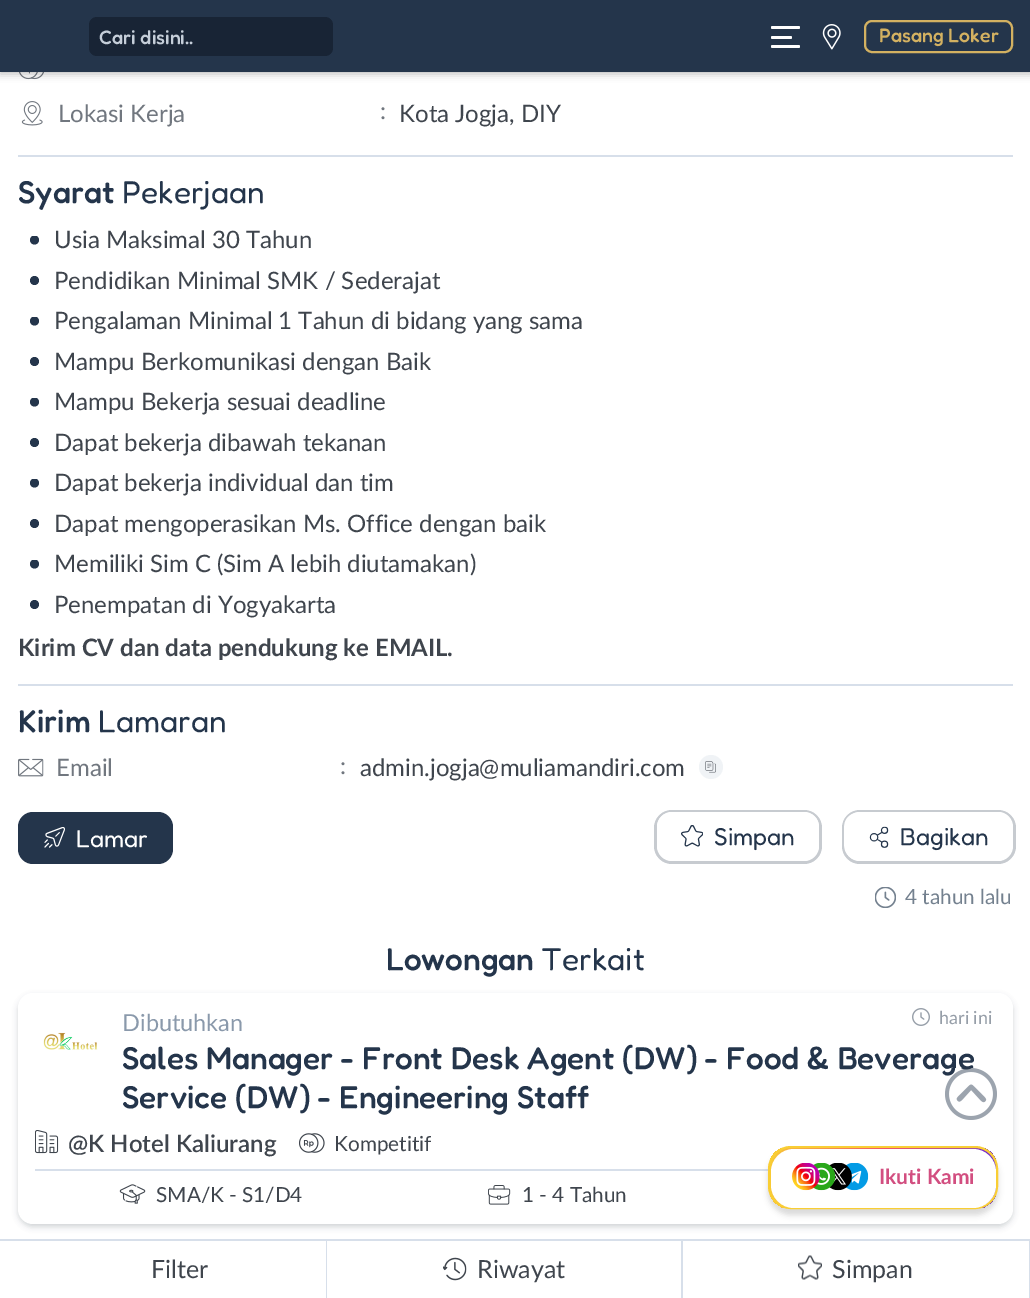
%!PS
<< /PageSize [1030 1298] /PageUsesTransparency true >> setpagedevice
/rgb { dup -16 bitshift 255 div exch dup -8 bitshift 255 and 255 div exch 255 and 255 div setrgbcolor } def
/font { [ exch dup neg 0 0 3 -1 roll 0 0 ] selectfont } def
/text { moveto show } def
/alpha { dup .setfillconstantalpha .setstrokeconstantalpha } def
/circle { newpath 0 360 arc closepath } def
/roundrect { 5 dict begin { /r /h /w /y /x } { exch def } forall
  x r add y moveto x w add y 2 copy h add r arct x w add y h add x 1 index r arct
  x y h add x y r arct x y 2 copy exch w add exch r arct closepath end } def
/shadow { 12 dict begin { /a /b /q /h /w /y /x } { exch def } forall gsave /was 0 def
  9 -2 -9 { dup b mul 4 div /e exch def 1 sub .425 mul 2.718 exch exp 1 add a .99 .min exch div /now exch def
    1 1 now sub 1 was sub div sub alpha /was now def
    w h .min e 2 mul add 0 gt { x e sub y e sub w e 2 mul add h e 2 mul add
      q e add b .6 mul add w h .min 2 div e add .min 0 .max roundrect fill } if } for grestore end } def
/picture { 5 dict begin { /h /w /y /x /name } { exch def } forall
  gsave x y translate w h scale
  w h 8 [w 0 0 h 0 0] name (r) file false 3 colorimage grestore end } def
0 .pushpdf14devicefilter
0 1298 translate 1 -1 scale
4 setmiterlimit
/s1 { /Fredoka-Medium 19.5 font 16#C5CED9 rgb } def
/s2 { /Fredoka-Medium 19.5 font 16#D3B161 rgb } def
/s3 { /Lato-Regular 24 font 16#71777F rgb } def
/s4 { /Lato-Regular 24 font 16#3F454D rgb } def
/s5 { /Fredoka-Medium 31.6 font 16#24354B rgb } def
/s6 { /Fredoka-Regular 31.6 font 16#24354B rgb } def
/s7 { /Lato-Bold 24 font 16#3F454D rgb } def
/s8 { /Fredoka-Regular 24.5 font 16#FFFFFF rgb } def
/s9 { /Fredoka-Regular 24.5 font 16#24354B rgb } def
/s10 { /Lato-Regular 20.75 font 16#74818F rgb } def
/s11 { /Lato-Regular 23.5 font 16#8A99AB rgb } def
/s12 { /Lato-Regular 18 font 16#969EA8 rgb } def
/s13 { /Lato-SemiBold 24 font 16#3F454D rgb } def
/s14 { /Lato-Regular 20.75 font 16#3F454D rgb } def
/s15 { /Lato-Bold 21 font 16#D24E80 rgb } def
/s16 { /Lato-Regular 25 font 16#3F454D rgb } def
16#FFFFFF rgb
0 0 1030 1298 rectfill
(pic2.raw) 19 72 25 8 picture
16#000000 rgb
0 2 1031 72 0 4 0.25 shadow
16#24354B rgb
0 0 1030 72 rectfill
16#182435 rgb
89 17 244 39 8 roundrect fill
s1
(Cari disini..) 99 44 text
16#FFFFFF rgb
771 26 29 3 1.5 roundrect fill
771 36 21 3 1.5 roundrect fill
771 45 29 3 1.5 roundrect fill
(pic1.raw) 822 24 19 26 picture
16#D3B161 rgb
2 setlinewidth
865 21 147 31 7 roundrect stroke
(Pasang Loker) 879 42 text
16#D7DFEA rgb
18 155 995 2 rectfill
(pic3.raw) 21 101 22 25 picture
s3
(Lokasi Kerja) 58 122 text
(:) 380 119 text
s4
(Kota Jogja, DIY) 399 122 text
s5
(Syarat) 18 203 text
s6
(Pekerjaan) 122 203 text
16#D7DFEA rgb
18 684 995 2 rectfill
gsave
30 236 9 9 rectclip
16#24354B rgb
34.5 240 4.5 circle fill
grestore
s4
(Usia Maksimal 30 Tahun) 54 248 text
16#24354B rgb
34.5 280.5 4.5 circle fill
s4
(Pendidikan Minimal SMK / Sederajat) 54 289 text
gsave
30 317 9 9 rectclip
16#24354B rgb
34.5 321 4.5 circle fill
grestore
(Pengalaman Minimal 1 Tahun di bidang yang sama) 54 329 text
16#24354B rgb
34.5 361.5 4.5 circle fill
s4
(Mampu Berkomunikasi dengan Baik) 54 370 text
gsave
30 398 9 9 rectclip
16#24354B rgb
34.5 402 4.5 circle fill
grestore
(Mampu Bekerja sesuai deadline) 54 410 text
16#24354B rgb
34.5 442.5 4.5 circle fill
s4
(Dapat bekerja dibawah tekanan) 54 451 text
gsave
30 479 9 9 rectclip
16#24354B rgb
34.5 483 4.5 circle fill
grestore
(Dapat bekerja individual dan tim) 54 491 text
16#24354B rgb
34.5 523.5 4.5 circle fill
s4
(Dapat mengoperasikan Ms. Office dengan baik) 54 532 text
gsave
30 560 9 9 rectclip
16#24354B rgb
34.5 564 4.5 circle fill
grestore
(Memiliki Sim C \(Sim A lebih diutamakan\)) 54 572 text
16#24354B rgb
34.5 604.5 4.5 circle fill
s4
(Penempatan di Yogyakarta) 54 613 text
s7
(Kirim CV dan data pendukung ke EMAIL.) 18 656 text
s5
(Kirim) 18 732 text
s6
(Lamaran) 98 732 text
(pic4.raw) 18 758 26 19 picture
s3
(Email) 56 776 text
(:) 340 774 text
s4
(admin.jogja@muliamandiri.com) 360 776 text
16#F0F3F6 rgb
711 767 12 circle fill
(pic5.raw) 705 761 11 12 picture
16#24354B rgb
18 812 155 52 15 roundrect fill
(pic6.raw) 44 827 21 21 picture
s8
(Lamar) 76 847 text
16#C7CBD0 rgb
672 810 moveto 662 810 654 818 654 828 curveto 654 846 lineto 654 856 662 864 672 864 curveto 804 864 lineto 814 864 822 856 822 846 curveto 822 828 lineto 822 818 814 810 804 810 curveto closepath 672 812 moveto 664 812 657 818 657 826 curveto 657 846 lineto 657 854 664 861 672 861 curveto 804 861 lineto 812 861 819 854 819 846 curveto 819 826 lineto 819 818 812 812 804 812 curveto closepath eofill
16#FFFFFF rgb
657 812 162 49 15 roundrect fill
(pic7.raw) 681 825 22 22 picture
s9
(Simpan) 714 845 text
16#C7CBD0 rgb
860 810 moveto 850 810 842 818 842 828 curveto 842 846 lineto 842 856 850 864 860 864 curveto 998 864 lineto 1008 864 1016 856 1016 846 curveto 1016 828 lineto 1016 818 1008 810 998 810 curveto closepath 860 812 moveto 851 812 844 818 844 826 curveto 844 846 lineto 844 854 851 861 860 861 curveto 998 861 lineto 1006 861 1012 854 1012 846 curveto 1012 826 lineto 1012 818 1006 812 998 812 curveto closepath eofill
16#FFFFFF rgb
845 812 168 49 15 roundrect fill
(pic8.raw) 869 826 20 22 picture
s9
(Bagikan) 900 845 text
(pic9.raw) 875 887 21 21 picture
s10
(4 tahun lalu) 905 904 text
s5
(Lowongan) 386 970 text
s6
(Terkait) 541 970 text
16#222F3F rgb
18 996 995 231 15 3 0.21 shadow
16#FFFFFF rgb
18 993 995 231 15 roundrect fill
s11
(Dibutuhkan) 122 1031 text
(pic10.raw) 912 1008 18 18 picture
s12
(hari ini) 939 1024 text
s5
(Sales Manager - Front Desk Agent \(DW\) - Food & Beverage) 122 1069 text
(Service \(DW\) - Engineering Staff) 122 1108 text
16#D7DFEA rgb
35 1169 733 2 rectfill
(pic11.raw) 35 1130 24 24 picture
s13
(@K Hotel Kaliurang) 68 1152 text
(pic12.raw) 299 1133 26 20 picture
s14
(Kompetitif) 334 1151 text
(pic13.raw) 119 1184 27 20 picture
(SMA/K - S1/D4) 156 1202 text
(pic14.raw) 488 1185 23 20 picture
(1 - 4 Tahun) 522 1202 text
(pic15.raw) 43 1032 55 18 picture
(pic16.raw) 945 1068 52 52 picture
16#000000 rgb
768 1152 230 63 23 3 0.15 shadow
gsave
768 1146 230 63 23 roundrect clip newpath
gsave 770 1148 moveto 996 1148 lineto 996 1208 lineto 770 1208 lineto closepath clip newpath
<< /ShadingType 2 /ColorSpace /DeviceRGB /Coords [768 1169 998 1186] /Extend [true true] /Function << /FunctionType 3 /Domain [0 1] /Functions [<< /FunctionType 2 /Domain [0 1] /C0 [0.976 0.808 0.204] /C1 [0.933 0.165 0.482] /N 1 >> << /FunctionType 2 /Domain [0 1] /C0 [0.933 0.165 0.482] /C1 [0.384 0.157 0.843] /N 1 >>] /Bounds [0.5] /Encode [0 1 0 1] >> >> shfill grestore
grestore
16#F9CE34 rgb
769 1147 228 61 22 roundrect stroke
16#FFFFFF rgb
771 1149 225 59 23 roundrect fill
(pic17.raw) 792 1163 77 28 picture
s15
(Ikuti Kami) 879 1184 text
16#D7DFEA rgb
0 1239 1030 2 rectfill
326 1239 1 59 rectfill
s16
(Filter) 151 1278 text
16#D7DFEA rgb
681 1239 2 59 rectfill
(pic18.raw) 443 1257 24 24 picture
s16
(Riwayat) 477 1278 text
16#D7DFEA rgb
1029 1239 1 59 rectfill
(pic19.raw) 798 1255 24 25 picture
s16
(Simpan) 832 1278 text
.poppdf14devicefilter showpage
